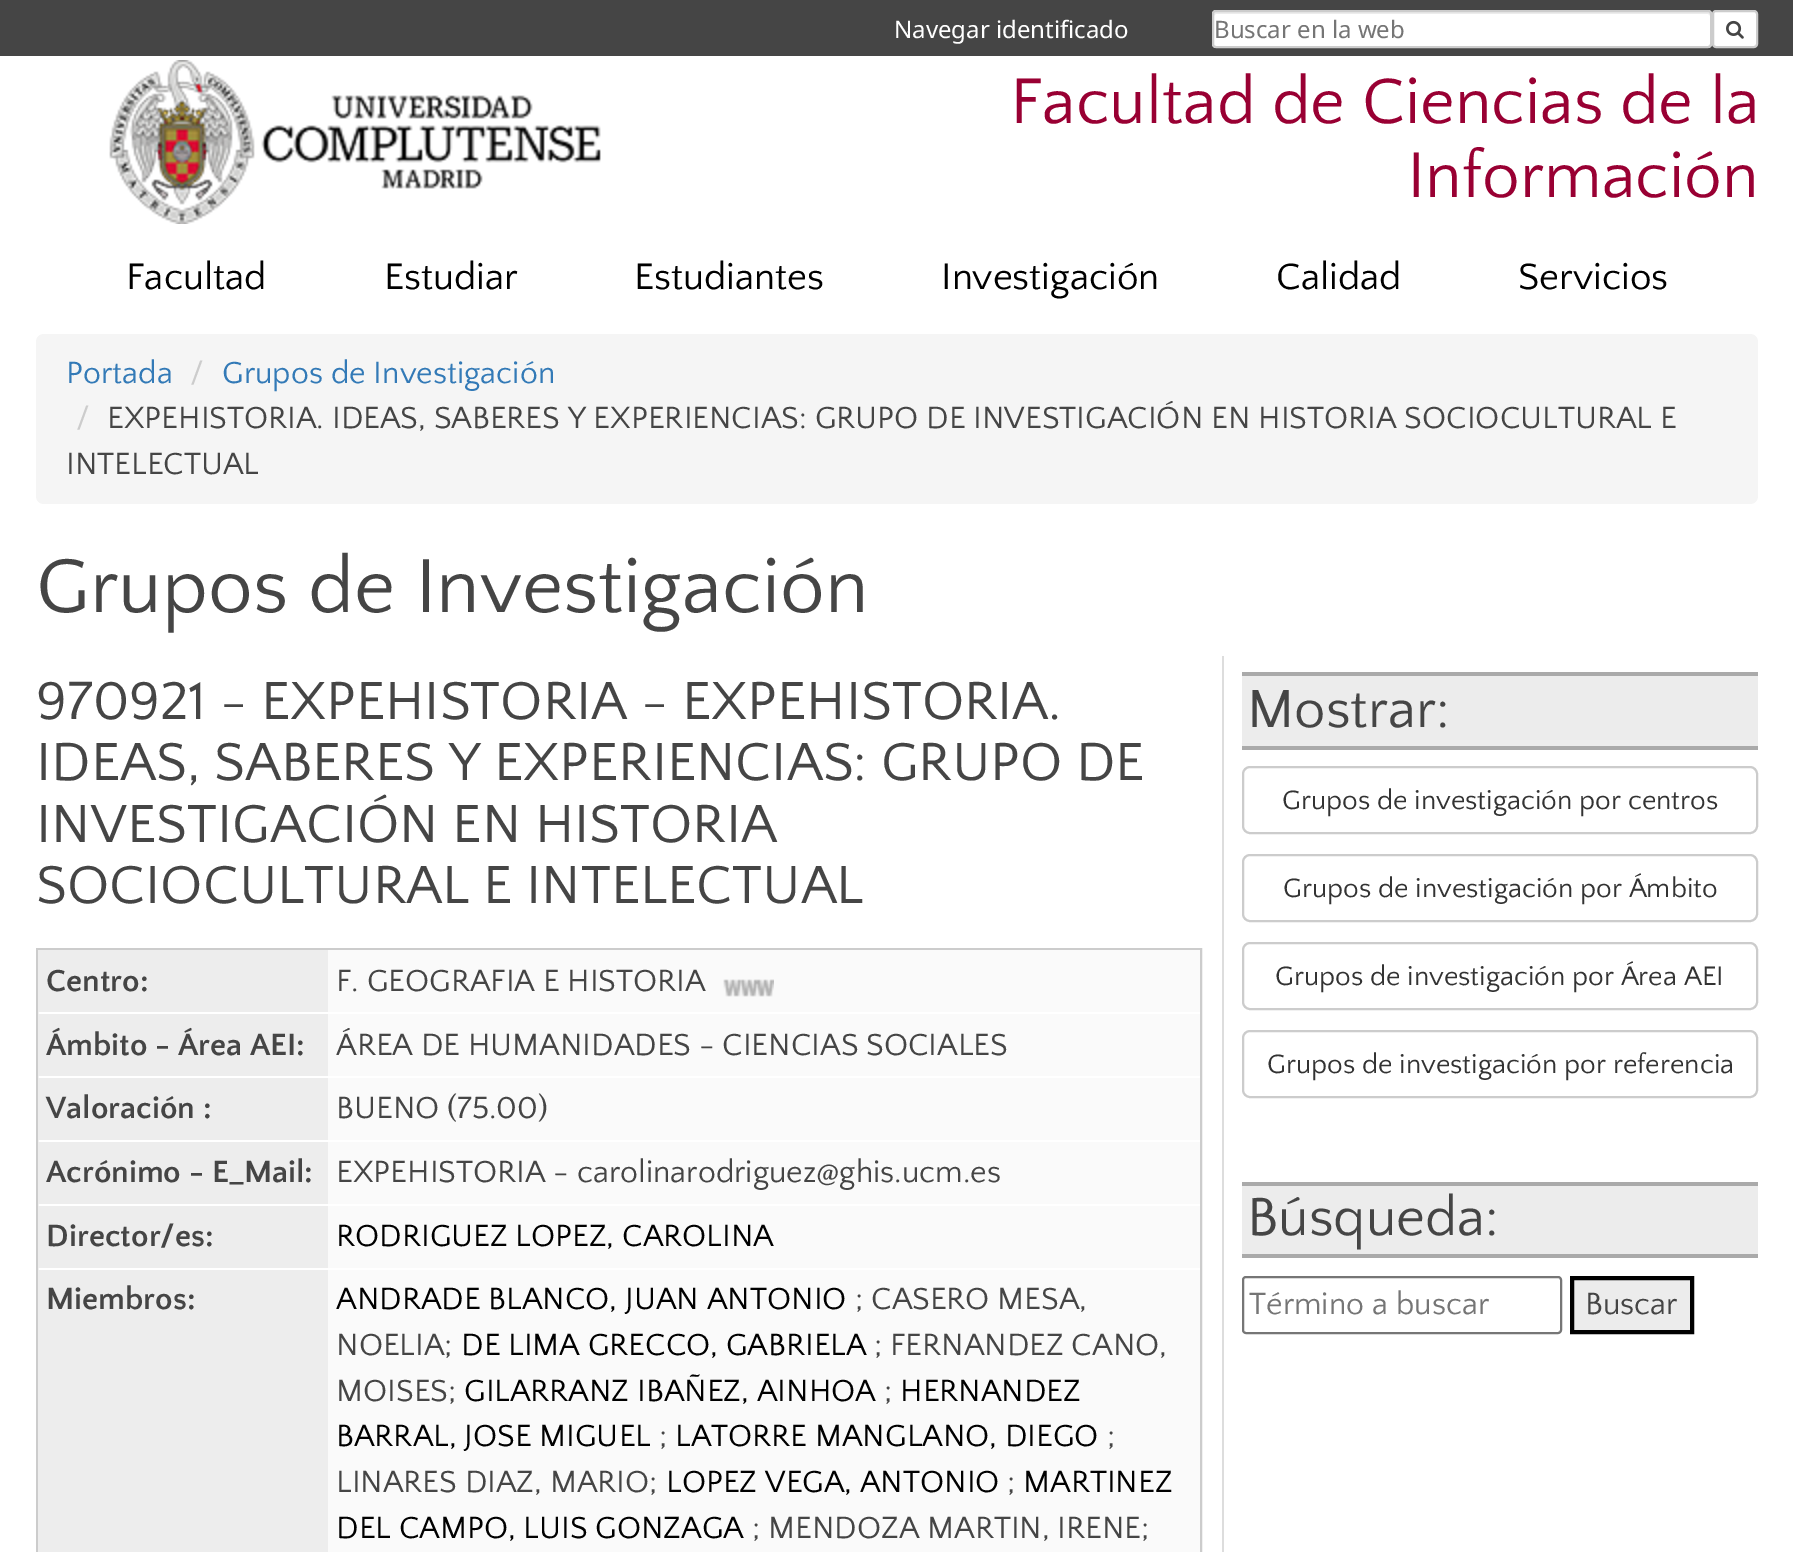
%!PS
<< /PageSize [1793 1552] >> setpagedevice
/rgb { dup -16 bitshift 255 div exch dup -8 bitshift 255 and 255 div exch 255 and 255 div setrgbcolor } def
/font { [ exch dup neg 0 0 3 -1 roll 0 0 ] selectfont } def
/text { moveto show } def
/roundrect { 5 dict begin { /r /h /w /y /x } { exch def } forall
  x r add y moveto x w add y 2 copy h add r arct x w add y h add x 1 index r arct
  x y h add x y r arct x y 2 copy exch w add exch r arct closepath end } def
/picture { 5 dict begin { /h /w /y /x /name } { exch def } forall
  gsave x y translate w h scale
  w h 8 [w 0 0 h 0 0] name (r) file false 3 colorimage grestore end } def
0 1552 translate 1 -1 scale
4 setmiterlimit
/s1 { /NotoSans-Regular 24 font 16#FFFFFF rgb } def
/s2 { /NotoSans-Regular 24 font 16#757575 rgb } def
/s3 { /QuattrocentoSans-Regular 67.25 font 16#990033 rgb } def
/s4 { /QuattrocentoSans-Regular 38.5 font 16#000000 rgb } def
/s5 { /QuattrocentoSans-Regular 32 font 16#337AB7 rgb } def
/s6 { /QuattrocentoSans-Regular 32 font 16#CCCCCC rgb } def
/s7 { /QuattrocentoSans-Regular 32 font 16#454545 rgb } def
/s8 { /QuattrocentoSans-Regular 80 font 16#454545 rgb } def
/s9 { /QuattrocentoSans-Regular 56 font 16#454545 rgb } def
/s10 { /QuattrocentoSans-Bold 32 font 16#454545 rgb } def
/s11 { /QuattrocentoSans-Regular 32 font 16#000000 rgb } def
/s12 { /QuattrocentoSans-Regular 28 font 16#333333 rgb } def
/s13 { /QuattrocentoSans-Regular 32 font 16#757575 rgb } def
16#FFFFFF rgb
0 0 1793 1552 rectfill
16#454545 rgb
0 0 1793 56 rectfill
s1
(Navegar identificado) 894 38 text
1212 10 500 38 4 roundrect fill
16#ECECEC rgb
1216 14 moveto 1708 14 lineto 1709 14 1710 15 1710 16 curveto 1710 13 lineto 1709 12 lineto 1216 12 lineto 1214 12 1214 14 1214 16 curveto 1214 15 1215 14 1216 14 curveto closepath fill
16#CCCCCC rgb
2 setlinewidth
1213 11 498 36 3 roundrect stroke
s2
(Buscar en la web) 1214 38 text
16#FFFFFF rgb
1713 11 44 36 3 roundrect gsave fill grestore
16#CCCCCC rgb
stroke
(pic1.raw) 1726 20 18 19 picture
(pic2.raw) 109 60 492 164 picture
s3
(Facultad de Ciencias de la) 1010 123 text
(Información) 1407 197 text
s4
(Facultad) 126 289 text
(Estudiar) 384 289 text
(Estudiantes) 634 289 text
(Investigación) 941 289 text
(Calidad) 1276 289 text
(Servicios) 1518 289 text
16#F5F5F5 rgb
36 334 1722 170 8 roundrect fill
s5
(Portada) 66 383 text
s6
(/) 190 383 text
s5
(Grupos de Investigación) 222 383 text
s6
(/) 76 428 text
s7
(EXPEHISTORIA. IDEAS, SABERES Y EXPERIENCIAS: GRUPO DE INVESTIGACIÓN EN HISTORIA SOCIOCULTURAL E) 107 428 text
(INTELECTUAL) 66 474 text
s8
(Grupos de Investigación) 36 612 text
16#DDDDDD rgb
1222 656 2 896 rectfill
s9
(970921 - EXPEHISTORIA - EXPEHISTORIA.) 36 719 text
(IDEAS, SABERES Y EXPERIENCIAS: GRUPO DE) 36 780 text
(INVESTIGACIÓN EN HISTORIA) 36 842 text
(SOCIOCULTURAL E INTELECTUAL) 36 903 text
16#CCCCCC rgb
37 949 1164 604 rectstroke
16#EDEDED rgb
38 950 290 62 rectfill
s10
(Centro:) 46 991 text
16#FAFAFA rgb
328 950 872 62 rectfill
s7
(F. GEOGRAFIA E HISTORIA) 336 991 text
(pic3.raw) 723 979 51 18 picture
16#EDEDED rgb
38 1014 290 62 rectfill
s10
(Ámbito - Área AEI:) 46 1055 text
16#FAFAFA rgb
328 1014 872 62 rectfill
s7
(ÁREA DE HUMANIDADES - CIENCIAS SOCIALES) 336 1055 text
16#EDEDED rgb
38 1078 290 62 rectfill
s10
(Valoración :) 46 1118 text
16#FAFAFA rgb
328 1078 872 62 rectfill
s7
(BUENO \(75.00\)) 336 1118 text
16#EDEDED rgb
38 1142 290 62 rectfill
s10
(Acrónimo - E_Mail:) 46 1182 text
16#FAFAFA rgb
328 1142 872 62 rectfill
s7
(EXPEHISTORIA - carolinarodriguez@ghis.ucm.es) 336 1182 text
16#EDEDED rgb
38 1206 290 62 rectfill
s10
(Director/es:) 46 1246 text
16#FAFAFA rgb
328 1206 872 62 rectfill
s11
(RODRIGUEZ LOPEZ, CAROLINA) 336 1246 text
16#EDEDED rgb
38 1270 290 282 rectfill
s10
(Miembros:) 46 1309 text
16#FAFAFA rgb
328 1270 872 282 rectfill
s11
(ANDRADE BLANCO, JUAN ANTONIO) 336 1309 text
s7
(; CASERO MESA,) 855 1309 text
(NOELIA;) 336 1355 text
s11
(DE LIMA GRECCO, GABRIELA) 461 1355 text
s7
(; FERNANDEZ CANO,) 874 1355 text
(MOISES;) 336 1401 text
s11
(GILARRANZ IBAÑEZ, AINHOA) 464 1401 text
s7
(;) 884 1401 text
s11
(HERNANDEZ) 900 1401 text
(BARRAL, JOSE MIGUEL) 336 1446 text
s7
(;) 659 1446 text
s11
(LATORRE MANGLANO, DIEGO) 675 1446 text
s7
(;) 1107 1446 text
(LINARES DIAZ, MARIO;) 336 1492 text
s11
(LOPEZ VEGA, ANTONIO) 666 1492 text
s7
(;) 1007 1492 text
s11
(MARTINEZ) 1023 1492 text
(DEL CAMPO, LUIS GONZAGA) 336 1538 text
s7
(; MENDOZA MARTIN, IRENE;) 752 1538 text
16#ECECEC rgb
1242 676 516 70 rectfill
16#AAAAAA rgb
1242 672 516 4 rectfill
1242 746 516 4 rectfill
s9
(Mostrar:) 1247 727 text
16#CCCCCC rgb
1243 767 514 66 7 roundrect stroke
s12
(Grupos de investigación por centros) 1282 809 text
16#CCCCCC rgb
1243 855 514 66 7 roundrect stroke
s12
(Grupos de investigación por Ámbito) 1283 897 text
16#CCCCCC rgb
1243 943 514 66 7 roundrect stroke
s12
(Grupos de investigación por Área AEI) 1275 985 text
16#CCCCCC rgb
1243 1031 514 66 7 roundrect stroke
s12
(Grupos de investigación por referencia) 1267 1073 text
16#ECECEC rgb
1242 1186 516 68 rectfill
16#AAAAAA rgb
1242 1182 516 4 rectfill
1242 1254 516 4 rectfill
s9
(Búsqueda:) 1247 1235 text
16#767676 rgb
1243 1277 318 56 3 roundrect stroke
s13
(Término a buscar) 1249 1314 text
16#ECECEC rgb
1572 1278 moveto 1692 1278 lineto 1692 1332 lineto 1572 1332 lineto closepath gsave fill grestore
16#000000 rgb
4 setlinewidth
stroke
s7
(Buscar) 1585 1314 text
showpage
